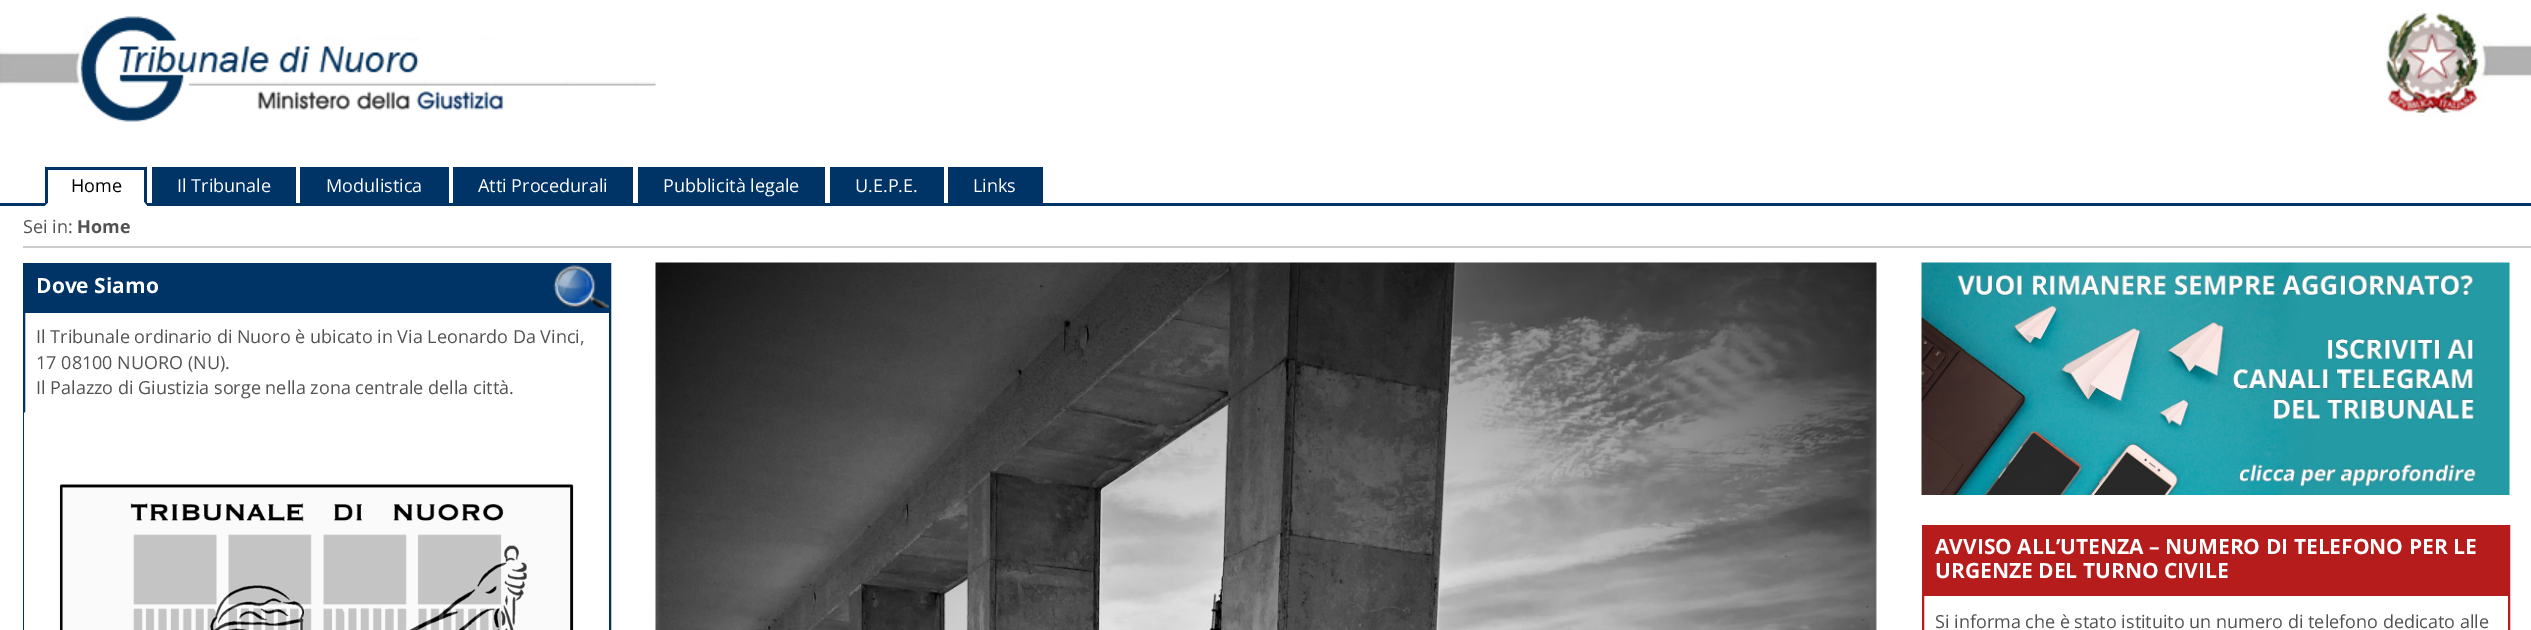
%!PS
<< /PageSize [2531 630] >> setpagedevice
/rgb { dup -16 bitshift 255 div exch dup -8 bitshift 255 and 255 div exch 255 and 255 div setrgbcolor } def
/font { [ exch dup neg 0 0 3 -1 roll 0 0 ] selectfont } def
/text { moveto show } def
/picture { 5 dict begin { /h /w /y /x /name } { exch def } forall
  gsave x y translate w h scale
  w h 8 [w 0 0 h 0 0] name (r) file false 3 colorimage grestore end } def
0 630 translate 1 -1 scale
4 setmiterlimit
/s1 { /OpenSans-Regular 18 font 16#000000 rgb } def
/s2 { /OpenSans-Regular 18 font 16#FFFFFF rgb } def
/s3 { /OpenSans-Regular 18 font 16#525252 rgb } def
/s4 { /OpenSans-Bold 18 font 16#525252 rgb } def
/s5 { /OpenSans-Bold 21 font 16#FFFFFF rgb } def
16#FFFFFF rgb
0 0 2531 630 rectfill
(pic1.raw) 0 16 656 106 picture
(pic2.raw) 2386 13 145 104 picture
16#003366 rgb
0 203 2531 3 rectfill
16#FFFFFF rgb
45 203 102 3 rectfill
16#003366 rgb
45 167 102 3 rectfill
147 166.5 moveto 147 205.5 lineto 144 202.5 lineto 144 169.5 lineto closepath fill
16#FFFFFF rgb
147 206 moveto 45 206 lineto 48 202 lineto 144 202 lineto closepath fill
16#003366 rgb
45 205.5 moveto 45 166.5 lineto 48 169.5 lineto 48 202.5 lineto closepath fill
s1
(Home) 71 192 text
16#003366 rgb
152 167 144 36 rectfill
s2
(Il Tribunale) 177 192 text
16#003366 rgb
300 167 149 36 rectfill
s2
(Modulistica) 326 192 text
16#003366 rgb
453 167 180 36 rectfill
s2
(Atti Procedurali) 478 192 text
16#003366 rgb
638 167 187 36 rectfill
s2
(Pubblicità legale) 663 192 text
16#003366 rgb
830 167 114 36 rectfill
s2
(U.E.P.E.) 855 192 text
16#003366 rgb
948 167 95 36 rectfill
s2
(Links) 973 192 text
16#CCCCCC rgb
23 246 2508 2 rectfill
s3
(Sei in:) 23 233 text
s4
(Home) 77 233 text
16#003366 rgb
2 setlinewidth
24 264 586 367 rectstroke
25 265 584 46 rectfill
(pic3.raw) 553 265 56 43 picture
24 311 585 2 rectfill
s5
(Dove Siamo) 36 293 text
s3
(Il Tribunale ordinario di Nuoro è ubicato in Via Leonardo Da Vinci,) 36 343 text
(17 08100 NUORO \(NU\).) 36 369 text
(Il Palazzo di Giustizia sorge nella zona centrale della città.) 36 394 text
(pic4.raw) 24 412 550 218 picture
(pic5.raw) 655 262 1222 368 picture
(pic6.raw) 1921 262 589 233 picture
16#B71C1C rgb
1923 526 586 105 rectstroke
1924 527 584 69 rectfill
s5
(AVVISO ALL’UTENZA – NUMERO DI TELEFONO PER LE) 1935 554 text
(URGENZE DEL TURNO CIVILE) 1935 578 text
s3
(Si informa che è stato istituito un numero di telefono dedicato alle) 1935 628 text
showpage
